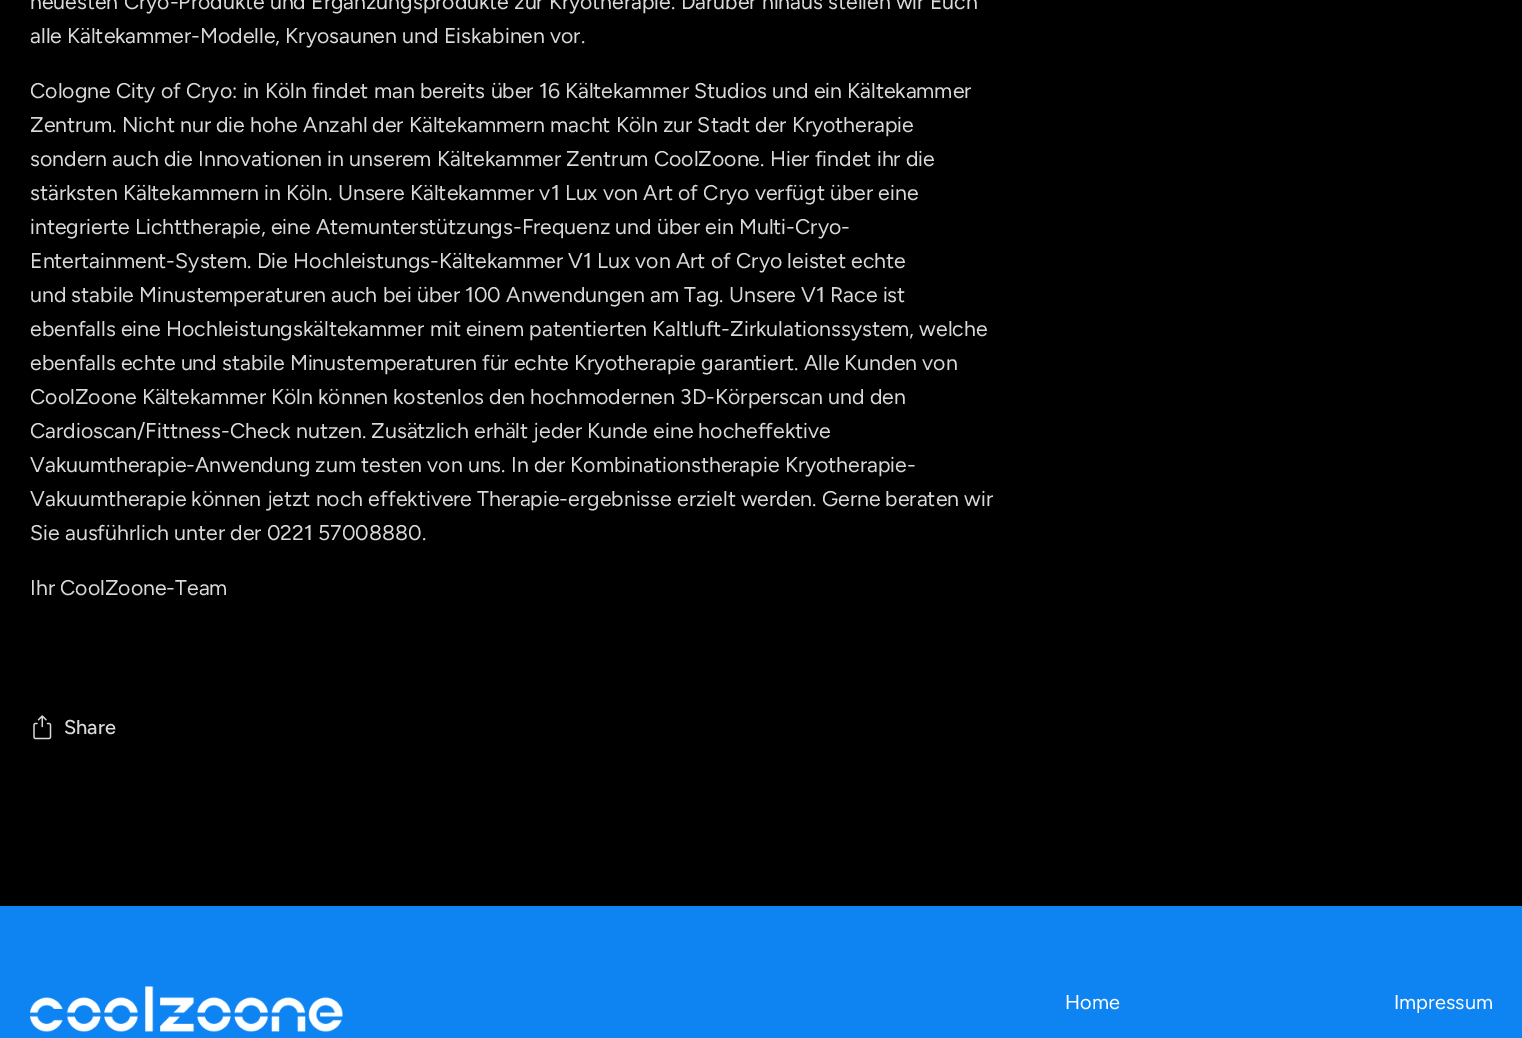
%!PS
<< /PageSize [1522 1038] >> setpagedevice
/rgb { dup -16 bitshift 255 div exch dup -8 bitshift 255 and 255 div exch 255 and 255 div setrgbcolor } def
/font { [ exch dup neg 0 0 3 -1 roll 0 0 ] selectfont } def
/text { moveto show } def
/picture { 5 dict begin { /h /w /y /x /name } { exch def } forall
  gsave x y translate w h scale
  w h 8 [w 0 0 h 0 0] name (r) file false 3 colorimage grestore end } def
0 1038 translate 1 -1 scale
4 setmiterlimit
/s1 { /Figtree-Regular 21.25 font 16#D9D9D9 rgb } def
/s2 { /Figtree-Medium 20 font 16#D9D9D9 rgb } def
/s3 { /Figtree-Regular 20 font 16#FFFFFF rgb } def
16#000000 rgb
0 0 1522 1038 rectfill
s1
(neuesten Cryo-Produkte und Ergänzungsprodukte zur Kryotherapie. Darüber hinaus stellen wir Euch) 30 9 text
(alle Kältekammer-Modelle, Kryosaunen und Eiskabinen vor.) 30 43 text
(Cologne City of Cryo: in Köln findet man bereits über 16 Kältekammer Studios und ein Kältekammer) 30 98 text
(Zentrum. Nicht nur die hohe Anzahl der Kältekammern macht Köln zur Stadt der Kryotherapie) 30 132 text
(sondern auch die Innovationen in unserem Kältekammer Zentrum CoolZoone. Hier findet ihr die) 30 166 text
(stärksten Kältekammern in Köln. Unsere Kältekammer v1 Lux von Art of Cryo verfügt über eine) 30 200 text
(integrierte Lichttherapie, eine Atemunterstützungs-Frequenz und über ein Multi-Cryo-) 30 234 text
(Entertainment-System. Die Hochleistungs-Kältekammer V1 Lux von Art of Cryo leistet echte) 30 268 text
(und stabile Minustemperaturen auch bei über 100 Anwendungen am Tag. Unsere V1 Race ist) 30 302 text
(ebenfalls eine Hochleistungskältekammer mit einem patentierten Kaltluft-Zirkulationssystem, welche) 30 336 text
(ebenfalls echte und stabile Minustemperaturen für echte Kryotherapie garantiert. Alle Kunden von) 30 370 text
(CoolZoone Kältekammer Köln können kostenlos den hochmodernen 3D-Körperscan und den) 30 404 text
(Cardioscan/Fittness-Check nutzen. Zusätzlich erhält jeder Kunde eine hocheffektive) 30 438 text
(Vakuumtherapie-Anwendung zum testen von uns. In der Kombinationstherapie Kryotherapie-) 30 472 text
(Vakuumtherapie können jetzt noch effektivere Therapie-ergebnisse erzielt werden. Gerne beraten wir) 30 506 text
(Sie ausführlich unter der 0221 57008880.) 30 540 text
(Ihr CoolZoone-Team) 30 595 text
(pic1.raw) 33 715 19 25 picture
s2
(Share) 64 734 text
16#0E84F2 rgb
0 906 1522 132 rectfill
(pic2.raw) 30 986 313 46 picture
s3
(Home) 1065 1009 text
(Impressum) 1394 1009 text
showpage
